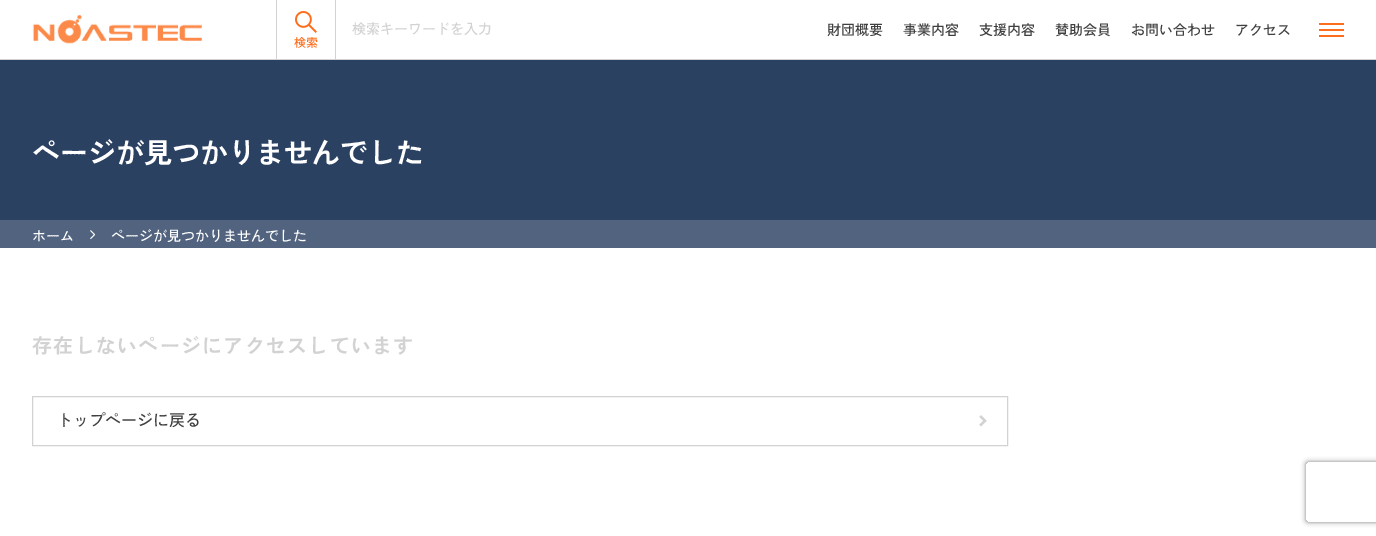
%!PS
<< /PageSize [1376 536] /PageUsesTransparency true >> setpagedevice
/rgb { dup -16 bitshift 255 div exch dup -8 bitshift 255 and 255 div exch 255 and 255 div setrgbcolor } def
/font { [ exch dup neg 0 0 3 -1 roll 0 0 ] selectfont } def
/text { moveto show } def
/alpha { dup .setfillconstantalpha .setstrokeconstantalpha } def
/roundrect { 5 dict begin { /r /h /w /y /x } { exch def } forall
  x r add y moveto x w add y 2 copy h add r arct x w add y h add x 1 index r arct
  x y h add x y r arct x y 2 copy exch w add exch r arct closepath end } def
/shadow { 12 dict begin { /a /b /q /h /w /y /x } { exch def } forall gsave /was 0 def
  9 -2 -9 { dup b mul 4 div /e exch def 1 sub .425 mul 2.718 exch exp 1 add a .99 .min exch div /now exch def
    1 1 now sub 1 was sub div sub alpha /was now def
    w h .min e 2 mul add 0 gt { x e sub y e sub w e 2 mul add h e 2 mul add
      q e add b .6 mul add w h .min 2 div e add .min 0 .max roundrect fill } if } for grestore end } def
/picture { 5 dict begin { /h /w /y /x /name } { exch def } forall
  gsave x y translate w h scale
  w h 8 [w 0 0 h 0 0] name (r) file false 3 colorimage grestore end } def
0 .pushpdf14devicefilter
0 536 translate 1 -1 scale
4 setmiterlimit
/s1 { /ZenKakuGothicAntique-Medium 14 font 16#D2D2D2 rgb } def
/s2 { /ZenKakuGothicAntique-Medium 12 font 16#FC6D1D rgb } def
/s3 { /ZenKakuGothicAntique-Medium 14 font 16#404040 rgb } def
/s4 { /ZenKakuGothicAntique-Bold 28 font 16#FFFFFF rgb } def
/s5 { /ZenKakuGothicAntique-Medium 14 font 16#FFFFFF rgb } def
/s6 { /ZenKakuGothicAntique-Medium 16 font 16#404040 rgb } def
16#FFFFFF rgb
0 0 1376 536 rectfill
16#D2D2D2 rgb
0 59 1376 1 rectfill
(pic1.raw) 32 15 170 29 picture
s1
(検索キーワードを入力) 352 34 text
335 0 1 59 rectfill
276 0 1 59 rectfill
(pic2.raw) 295 11 22 22 picture
s2
(検索) 294 47 text
s3
(財団概要) 827 35 text
(事業内容) 903 35 text
(支援内容) 979 35 text
(賛助会員) 1055 35 text
(お問い合わせ) 1131 35 text
(アクセス) 1235 35 text
16#FC6D1D rgb
1319 23 25 2 rectfill
1319 29 25 2 rectfill
1319 35 25 2 rectfill
16#2B4162 rgb
0 60 1376 160 rectfill
s4
(ページが見つかりませんでした) 32 163 text
16#51637E rgb
0 220 1376 28 rectfill
s5
(ホーム) 32 241 text
(pic3.raw) 90 230 5 9 picture
(ページが見つかりませんでした) 111 241 text
/ZenKakuGothicAntique-Bold 20 font
16#D2D2D2 rgb
32 353 moveto 1.25 0 (存在しないページにアクセスしています) ashow
32.5 396.5 975 49 rectstroke
s6
(トップページに戻る) 57 426 text
(pic4.raw) 979 415 8 12 picture
gsave
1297 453 moveto 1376 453 lineto 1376 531 lineto 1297 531 lineto closepath 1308 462 moveto 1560 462 lineto 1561 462 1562 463 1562 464 curveto 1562 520 lineto 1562 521 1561 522 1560 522 curveto 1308 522 lineto 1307 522 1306 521 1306 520 curveto 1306 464 lineto 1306 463 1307 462 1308 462 curveto closepath eoclip newpath
16#808080 rgb
1306 462 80 60 2 2.5 1 shadow
grestore
.poppdf14devicefilter showpage
